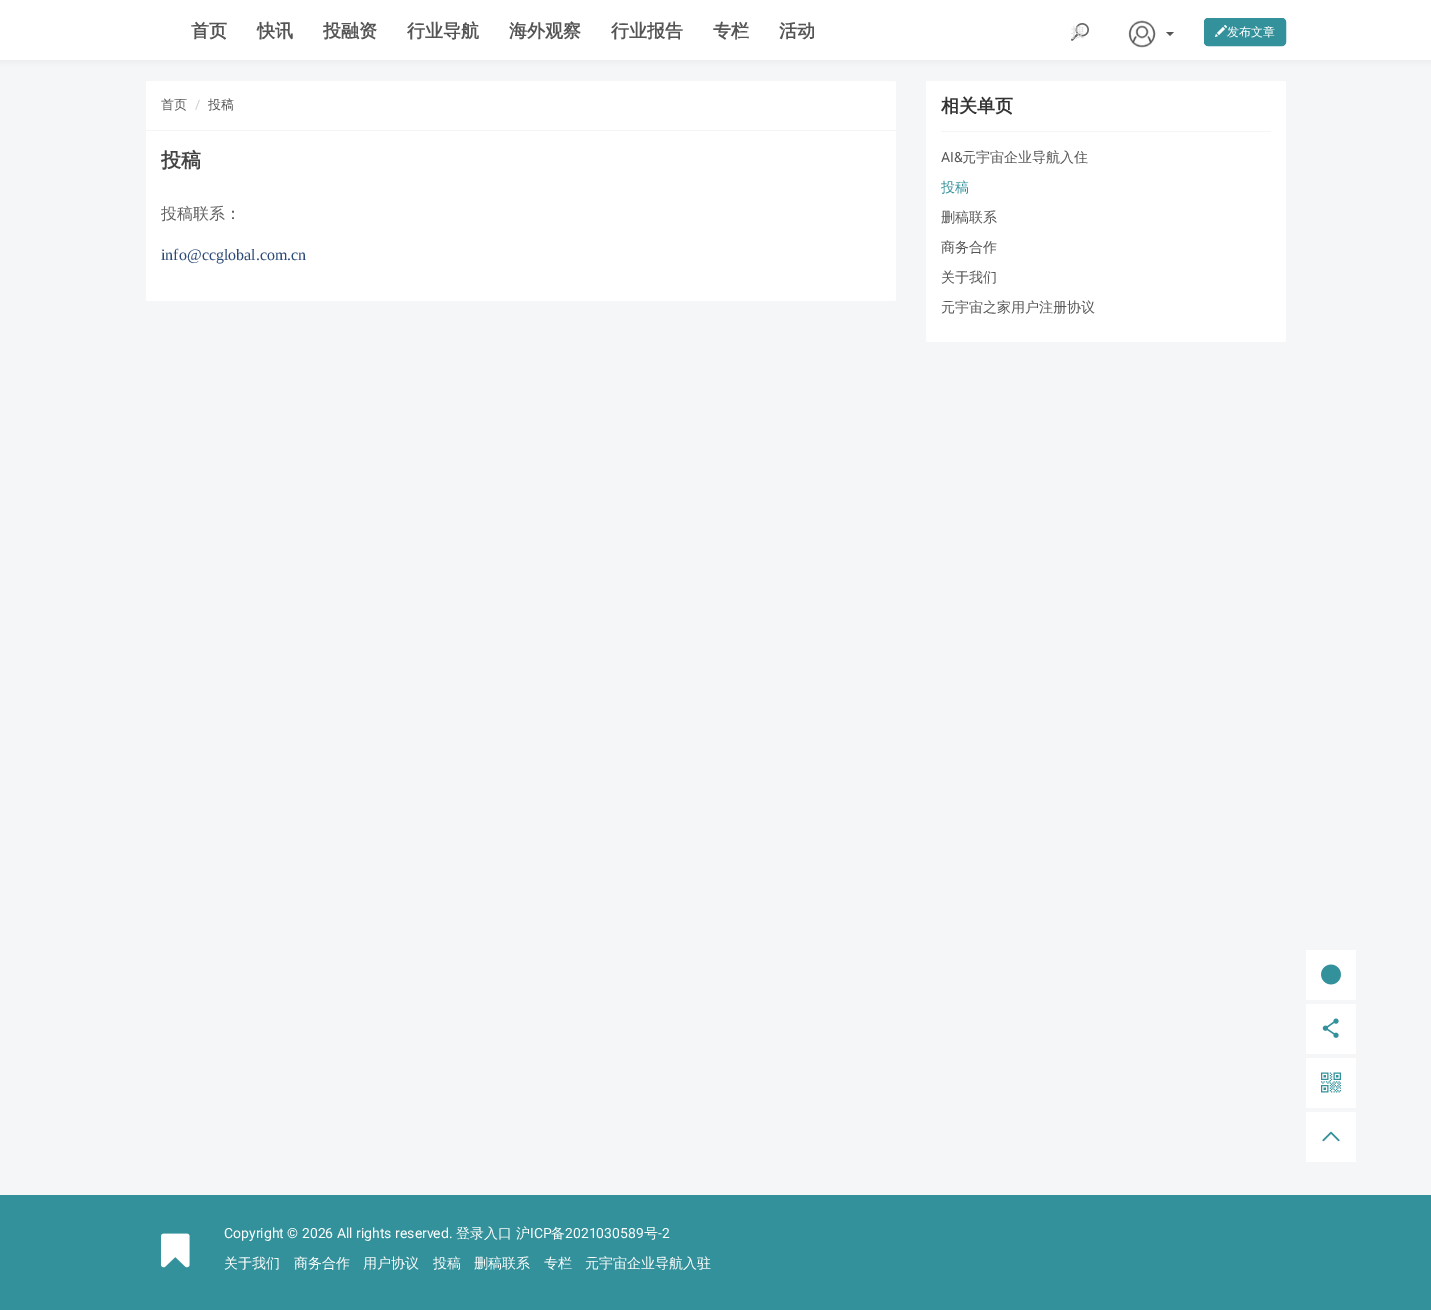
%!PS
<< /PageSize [1431 1310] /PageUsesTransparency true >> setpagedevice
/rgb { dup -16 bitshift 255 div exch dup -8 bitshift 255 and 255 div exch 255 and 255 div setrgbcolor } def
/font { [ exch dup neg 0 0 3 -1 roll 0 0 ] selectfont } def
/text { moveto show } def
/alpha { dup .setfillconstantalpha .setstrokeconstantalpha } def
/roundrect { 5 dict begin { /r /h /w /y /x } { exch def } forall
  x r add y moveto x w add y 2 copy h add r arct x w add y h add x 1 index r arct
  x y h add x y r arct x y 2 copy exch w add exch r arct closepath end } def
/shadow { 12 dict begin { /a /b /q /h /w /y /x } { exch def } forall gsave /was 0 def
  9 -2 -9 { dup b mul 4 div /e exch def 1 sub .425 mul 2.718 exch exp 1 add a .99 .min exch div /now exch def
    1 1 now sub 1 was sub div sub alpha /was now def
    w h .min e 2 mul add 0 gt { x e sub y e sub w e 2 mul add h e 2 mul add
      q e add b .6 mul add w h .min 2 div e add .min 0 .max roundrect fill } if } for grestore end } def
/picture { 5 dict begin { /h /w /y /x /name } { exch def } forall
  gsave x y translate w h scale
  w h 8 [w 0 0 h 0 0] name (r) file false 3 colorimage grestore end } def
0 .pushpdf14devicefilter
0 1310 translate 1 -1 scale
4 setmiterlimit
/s1 { /WenQuanYiZenHei-Bold 18 font 16#555555 rgb } def
/s2 { /WenQuanYiZenHei-Medium 14 font 16#DDDDDD rgb } def
/s3 { /WenQuanYiZenHei-Medium 12 font 16#FFFFFF rgb } def
/s4 { /WenQuanYiZenHei-Medium 13 font 16#555555 rgb } def
/s5 { /Roboto-Regular 13 font 16#CCCCCC rgb } def
/s6 { /WenQuanYiZenHei-Bold 20 font 16#444444 rgb } def
/s7 { /WenQuanYiZenHei-Medium 16 font 16#616161 rgb } def
/s8 { /LiberationSerif-Regular 16 font 16#2C4A77 rgb } def
/s9 { /WenQuanYiZenHei-Bold 18 font 16#333333 rgb } def
/s10 { /Roboto-Regular 14 font 16#555555 rgb } def
/s11 { /WenQuanYiZenHei-Medium 14 font 16#555555 rgb } def
/s12 { /WenQuanYiZenHei-Medium 14 font 16#33919B rgb } def
/s13 { /Roboto-Regular 14 font 16#FFFFFF rgb } def
/s14 { /WenQuanYiZenHei-Medium 14 font 16#FFFFFF rgb } def
16#F4F6F8 rgb
0 0 1431 1310 rectfill
16#000000 rgb
0 1 1431 60 0 4 0.05 shadow
16#FFFFFF rgb
0 0 1431 60 rectfill
s1
(首页) 191 37 text
(快讯) 257 37 text
(投融资) 323 37 text
(行业导航) 407 37 text
(海外观察) 509 37 text
(行业报告) 611 37 text
(专栏) 713 37 text
(活动) 779 37 text
(pic1.raw) 1071 23 18 18 picture
s2
(搜) 1071 37 text
(pic2.raw) 1128 20 28 28 picture
16#555555 rgb
1166 32 moveto 1174 32 lineto 1170 36 lineto closepath fill
16#33919B rgb
1204.5 18.5 81 27 3.5 roundrect gsave fill grestore
stroke
s3
(发布文章) 1227 36 text
(pic3.raw) 1215 25 12 12 picture
146 81 750 220 2 roundrect fill
16#F5F5F5 rgb
146 130 750 1 rectfill
s4
(首页) 161 109 text
s5
(/) 195 109 text
s4
(投稿) 208 109 text
gsave
161 146 720 44 rectclip
s6
(投稿) 161 167 text
grestore
s7
(投稿联系：) 161 219 text
s8
(info@ccglobal.com.cn) 161 260 text
16#FFFFFF rgb
926 81 360 261 2 roundrect fill
16#F5F5F5 rgb
941 131 330 1 rectfill
s9
(相关单页) 941 112 text
s10
(AI&) 941 162 text
s11
(元宇宙企业导航入住) 962 162 text
s12
(投稿) 941 192 text
s11
(删稿联系) 941 222 text
(商务合作) 941 252 text
(关于我们) 941 282 text
(元宇宙之家用户注册协议) 941 312 text
16#FFFFFF rgb
1306 950 50 50 rectfill
(pic4.raw) 1321 964 20 21 picture
1306 1004 50 50 rectfill
(pic5.raw) 1322 1018 17 20 picture
1306 1058 50 50 rectfill
(pic6.raw) 1321 1072 20 21 picture
1306 1112 50 50 rectfill
(pic7.raw) 1322 1131 18 11 picture
16#33919B rgb
0 1195 1431 115 rectfill
(pic8.raw) 161 1233 29 35 picture
s13
(Copyright © 2026 All rights reserved.) 224 1238 text
s14
(登录入口) 456 1238 text
(沪) 516 1238 text
s13
(ICP) 530 1238 text
s14
(备) 551 1238 text
s13
(2021030589) 565 1238 text
s14
(号) 644 1238 text
s13
(-2) 658 1238 text
s14
(关于我们) 224 1268 text
(商务合作) 294 1268 text
(用户协议) 363 1268 text
(投稿) 433 1268 text
(删稿联系) 474 1268 text
(专栏) 544 1268 text
(元宇宙企业导航入驻) 585 1268 text
.poppdf14devicefilter showpage
